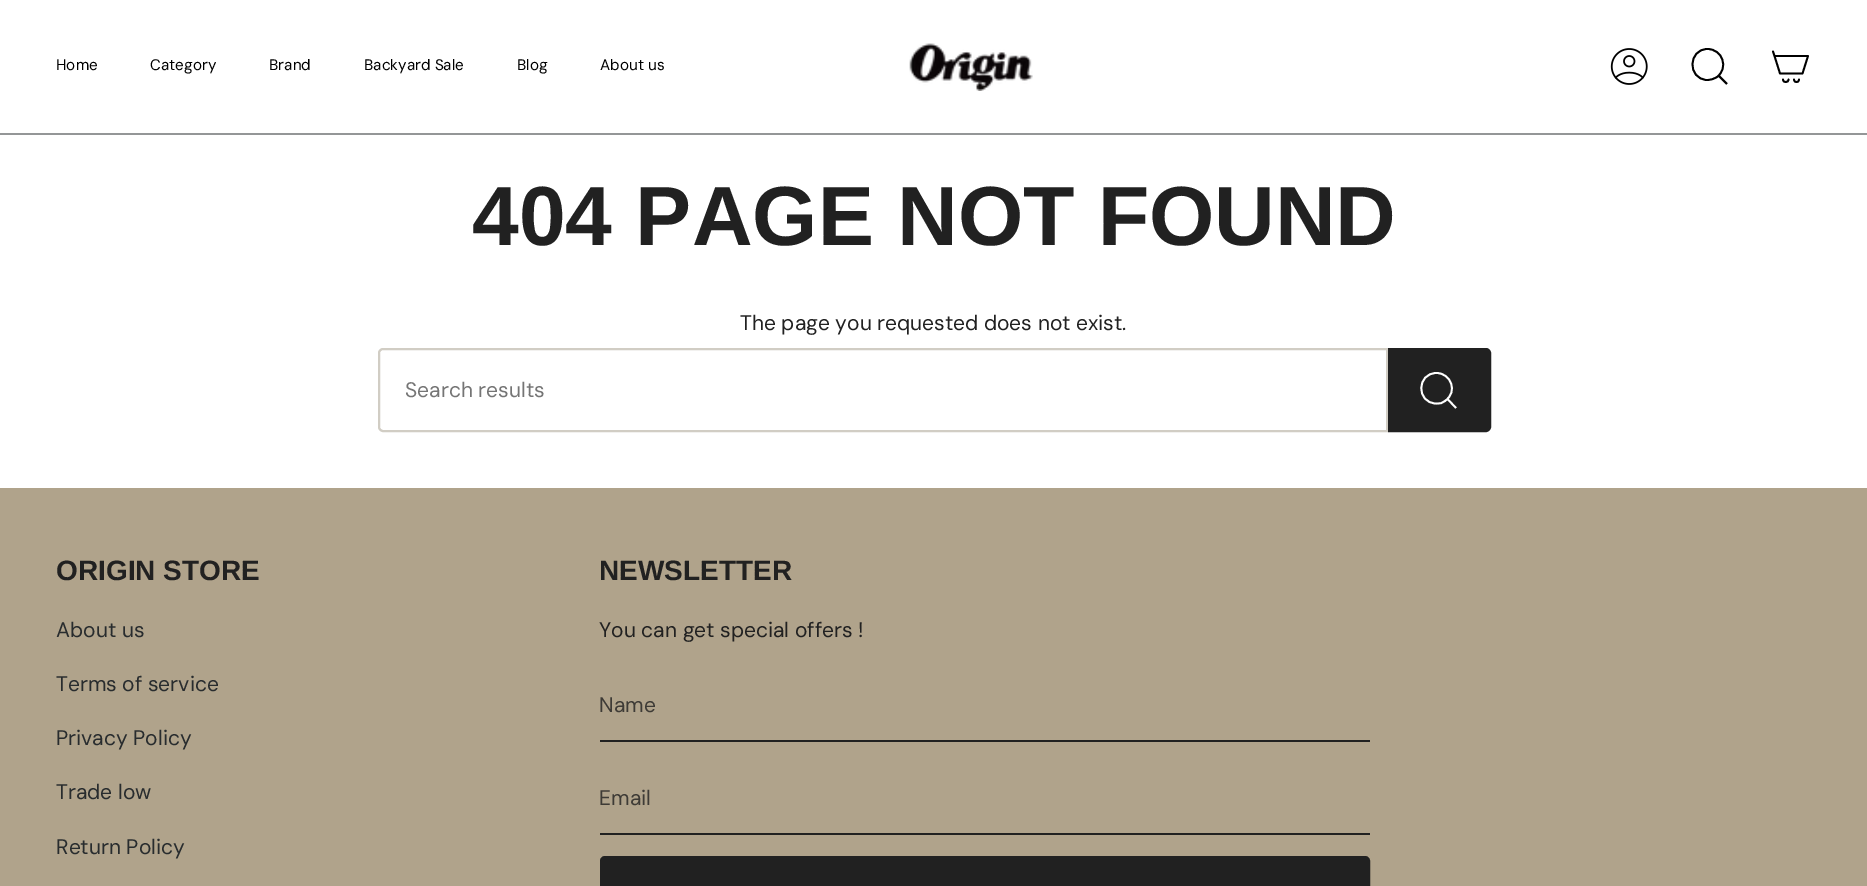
%!PS
<< /PageSize [1867 886] >> setpagedevice
/rgb { dup -16 bitshift 255 div exch dup -8 bitshift 255 and 255 div exch 255 and 255 div setrgbcolor } def
/font { [ exch dup neg 0 0 3 -1 roll 0 0 ] selectfont } def
/text { moveto show } def
/roundrect { 5 dict begin { /r /h /w /y /x } { exch def } forall
  x r add y moveto x w add y 2 copy h add r arct x w add y h add x 1 index r arct
  x y h add x y r arct x y 2 copy exch w add exch r arct closepath end } def
/picture { 5 dict begin { /h /w /y /x /name } { exch def } forall
  gsave x y translate w h scale
  w h 8 [w 0 0 h 0 0] name (r) file false 3 colorimage grestore end } def
0 886 translate 1 -1 scale
4 setmiterlimit
/s1 { /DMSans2-Regular 15.25 font 16#000000 rgb } def
/s2 { /LiberationSans-Bold 84 font 16#212121 rgb } def
/s3 { /DMSans-Regular 21 font 16#212121 rgb } def
/s4 { /DMSans-Regular 21 font 16#757575 rgb } def
/s5 { /LiberationSans-Bold 28 font 16#212121 rgb } def
/s6 { /DMSans-Regular 21 font 16#282C2E rgb } def
/s7 { /DMSans-Regular 21 font 16#3E3B36 rgb } def
16#FFFFFF rgb
0 0 1867 886 rectfill
s1
(Home) 56 70 text
(Category) 150 70 text
(Brand) 269 70 text
(Backyard Sale) 364 70 text
(Blog) 517 70 text
(About us) 600 70 text
(pic1.raw) 909 43 124 48 picture
(pic2.raw) 1610 48 38 37 picture
1.8 setlinewidth
1707.5 49 moveto 1722.5 49 1729 68 1717 77 curveto 1714 79 1710.5 80 1707 80 curveto 1687 79 1688 49 1707.5 49 curveto closepath 1718.5 75.5 moveto 1727 84 lineto stroke
1 setlinecap
1 setlinejoin
1774.5 56 moveto 1808 56 lineto 1802.5 73.5 lineto 1780 73.5 lineto closepath 1774.5 56 moveto 1773 51.5 lineto 1788.5 79.5 moveto 1788.5 83 1783 83 1783 79.5 curveto 1799 79.5 moveto 1799 83 1794 83 1794 79.5 curveto stroke
16#949697 rgb
0 133 1867 2 rectfill
s2
(404 PAGE NOT FOUND) 472 245 text
s3
(The page you requested does not exist.) 740 330 text
16#D1CDC4 rgb
2 setlinewidth
0 setlinecap
0 setlinejoin
383 349 moveto 1387 349 lineto 1387 431 lineto 383 431 lineto 381 431 379 429 379 427 curveto 379 353 lineto 379 351 381 349 383 349 curveto closepath stroke
s4
(Search results) 405 397 text
16#212121 rgb
1389 349 moveto 1486 349 lineto 1488 349 1490 351 1490 353 curveto 1490 427 lineto 1490 429 1488 431 1486 431 curveto 1389 431 lineto closepath gsave fill grestore
stroke
16#FFFFFF rgb
1.8 setlinewidth
1436.5 373 moveto 1451 373 1458 392 1445.5 400.5 curveto 1443 403 1439.5 404 1436 403.5 curveto 1416 403 1416.5 373 1436.5 373 curveto closepath 1447.5 399 moveto 1456 408 lineto stroke
16#B0A38B rgb
0 488 1867 398 rectfill
s5
(ORIGIN STORE) 56 580 text
s6
(About us) 56 637 text
(Terms of service) 56 691 text
(Privacy Policy) 56 745 text
(Trade low) 56 799 text
(Return Policy) 56 854 text
s5
(NEWSLETTER) 599 580 text
s3
(You can get special offers !) 599 637 text
600 740 770 2 rectfill
s7
(Name) 599 712 text
16#212121 rgb
600 833 770 2 rectfill
s7
(Email) 599 805 text
16#212121 rgb
601 857 768 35 4 roundrect gsave fill grestore
2 setlinewidth
stroke
showpage
